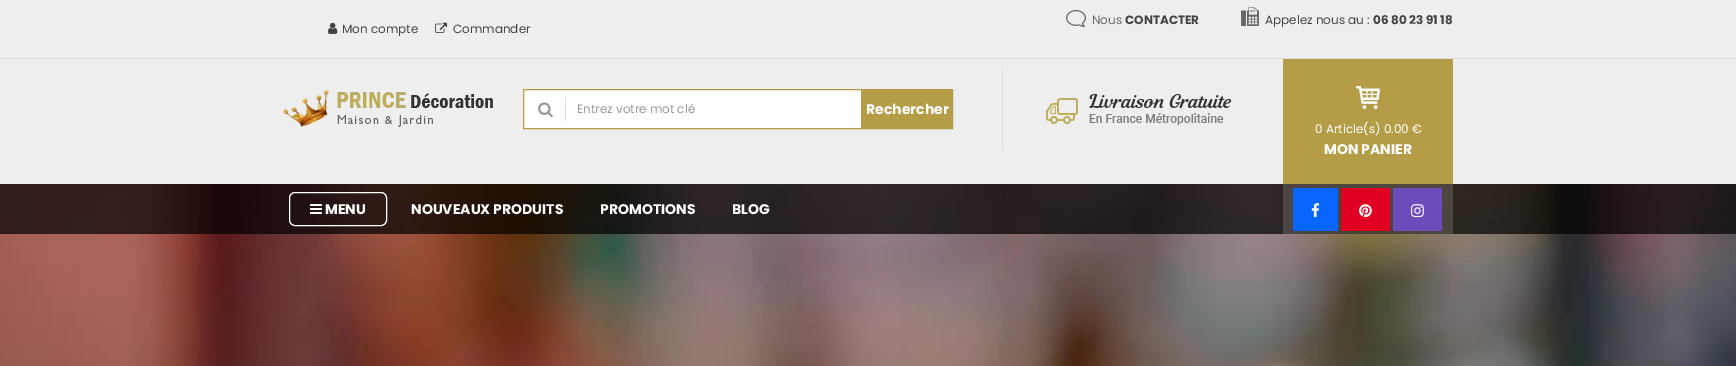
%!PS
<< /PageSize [1736 366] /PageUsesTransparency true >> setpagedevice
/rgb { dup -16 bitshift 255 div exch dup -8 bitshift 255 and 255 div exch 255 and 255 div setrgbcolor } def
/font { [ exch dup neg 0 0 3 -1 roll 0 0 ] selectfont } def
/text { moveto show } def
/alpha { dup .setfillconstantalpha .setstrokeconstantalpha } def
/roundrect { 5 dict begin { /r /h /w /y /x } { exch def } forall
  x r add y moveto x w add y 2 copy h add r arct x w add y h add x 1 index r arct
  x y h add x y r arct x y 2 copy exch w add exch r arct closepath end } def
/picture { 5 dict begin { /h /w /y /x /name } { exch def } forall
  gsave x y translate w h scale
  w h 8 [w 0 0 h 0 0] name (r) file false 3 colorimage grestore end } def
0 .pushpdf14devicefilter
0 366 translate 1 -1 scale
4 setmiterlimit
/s1 { /Poppins-Regular 12 font 16#666666 rgb } def
/s2 { /Poppins-Bold 12 font 16#444444 rgb } def
/s3 { /Poppins-Regular 12 font 16#444444 rgb } def
/s4 { /Poppins-Regular 12 font 16#999999 rgb } def
/s5 { /Poppins-Bold 14 font 16#FFFFFF rgb } def
/s6 { /Poppins-Regular 12 font 16#FFFFFF rgb } def
16#EEEEEE rgb
0 0 1736 366 rectfill
16#DDDDDD rgb
0 58 1736 1 rectfill
(pic1.raw) 1066 10 20 17 picture
s1
(Nous) 1092 24 text
s2
(CONTACTER) 1125 24 text
(pic2.raw) 1241 7 18 19 picture
s3
(Appelez nous au :) 1265 24 text
s2
(06 80 23 91 18) 1373 24 text
(pic3.raw) 328 22 10 12 picture
s3
(Mon compte) 342 33 text
(pic4.raw) 435 22 12 11 picture
(Commander) 453 33 text
(pic5.raw) 283 89 210 39 picture
16#FFFFFF rgb
524 90 337 38 rectfill
16#B49D46 rgb
523.5 89.5 429 39 rectstroke
16#DDDDDD rgb
565 97 1 24 rectfill
(pic6.raw) 538 102 15 16 picture
s4
(Entrez votre mot clé) 577 113 text
16#B49D46 rgb
861 90 91 38 rectfill
s5
(Rechercher) 866 114 text
16#DDDDDD rgb
1002 68 1 83 rectfill
(pic7.raw) 1046 94 186 31 picture
16#B49D46 rgb
1283 59 170 125 rectfill
(pic8.raw) 1356 86 24 23 picture
s6
(0 Article\(s\) 0.00 €) 1315 133 text
s5
(MON PANIER) 1324 154 text
(pic13.raw) 0 184 1736 182 picture
0.7 alpha
16#000000 rgb
0 184 1736 50 rectfill
1 alpha
16#FFFFFF rgb
289.5 192.5 97 33 5.5 roundrect stroke
(pic9.raw) 310 204 12 10 picture
(MENU) 325 214 text
(NOUVEAUX PRODUITS) 411 214 text
(PROMOTIONS) 600 214 text
(BLOG) 732 214 text
0.15 alpha
1283 184 170 50 rectfill
1 alpha
16#0866FF rgb
1293 188 45 43 rectfill
(pic10.raw) 1311 203 9 15 picture
16#DF0022 rgb
1341 188 49 43 rectfill
(pic11.raw) 1359 204 13 14 picture
16#6C4CBA rgb
1393 188 49 43 rectfill
(pic12.raw) 1411 204 13 14 picture
.poppdf14devicefilter showpage
